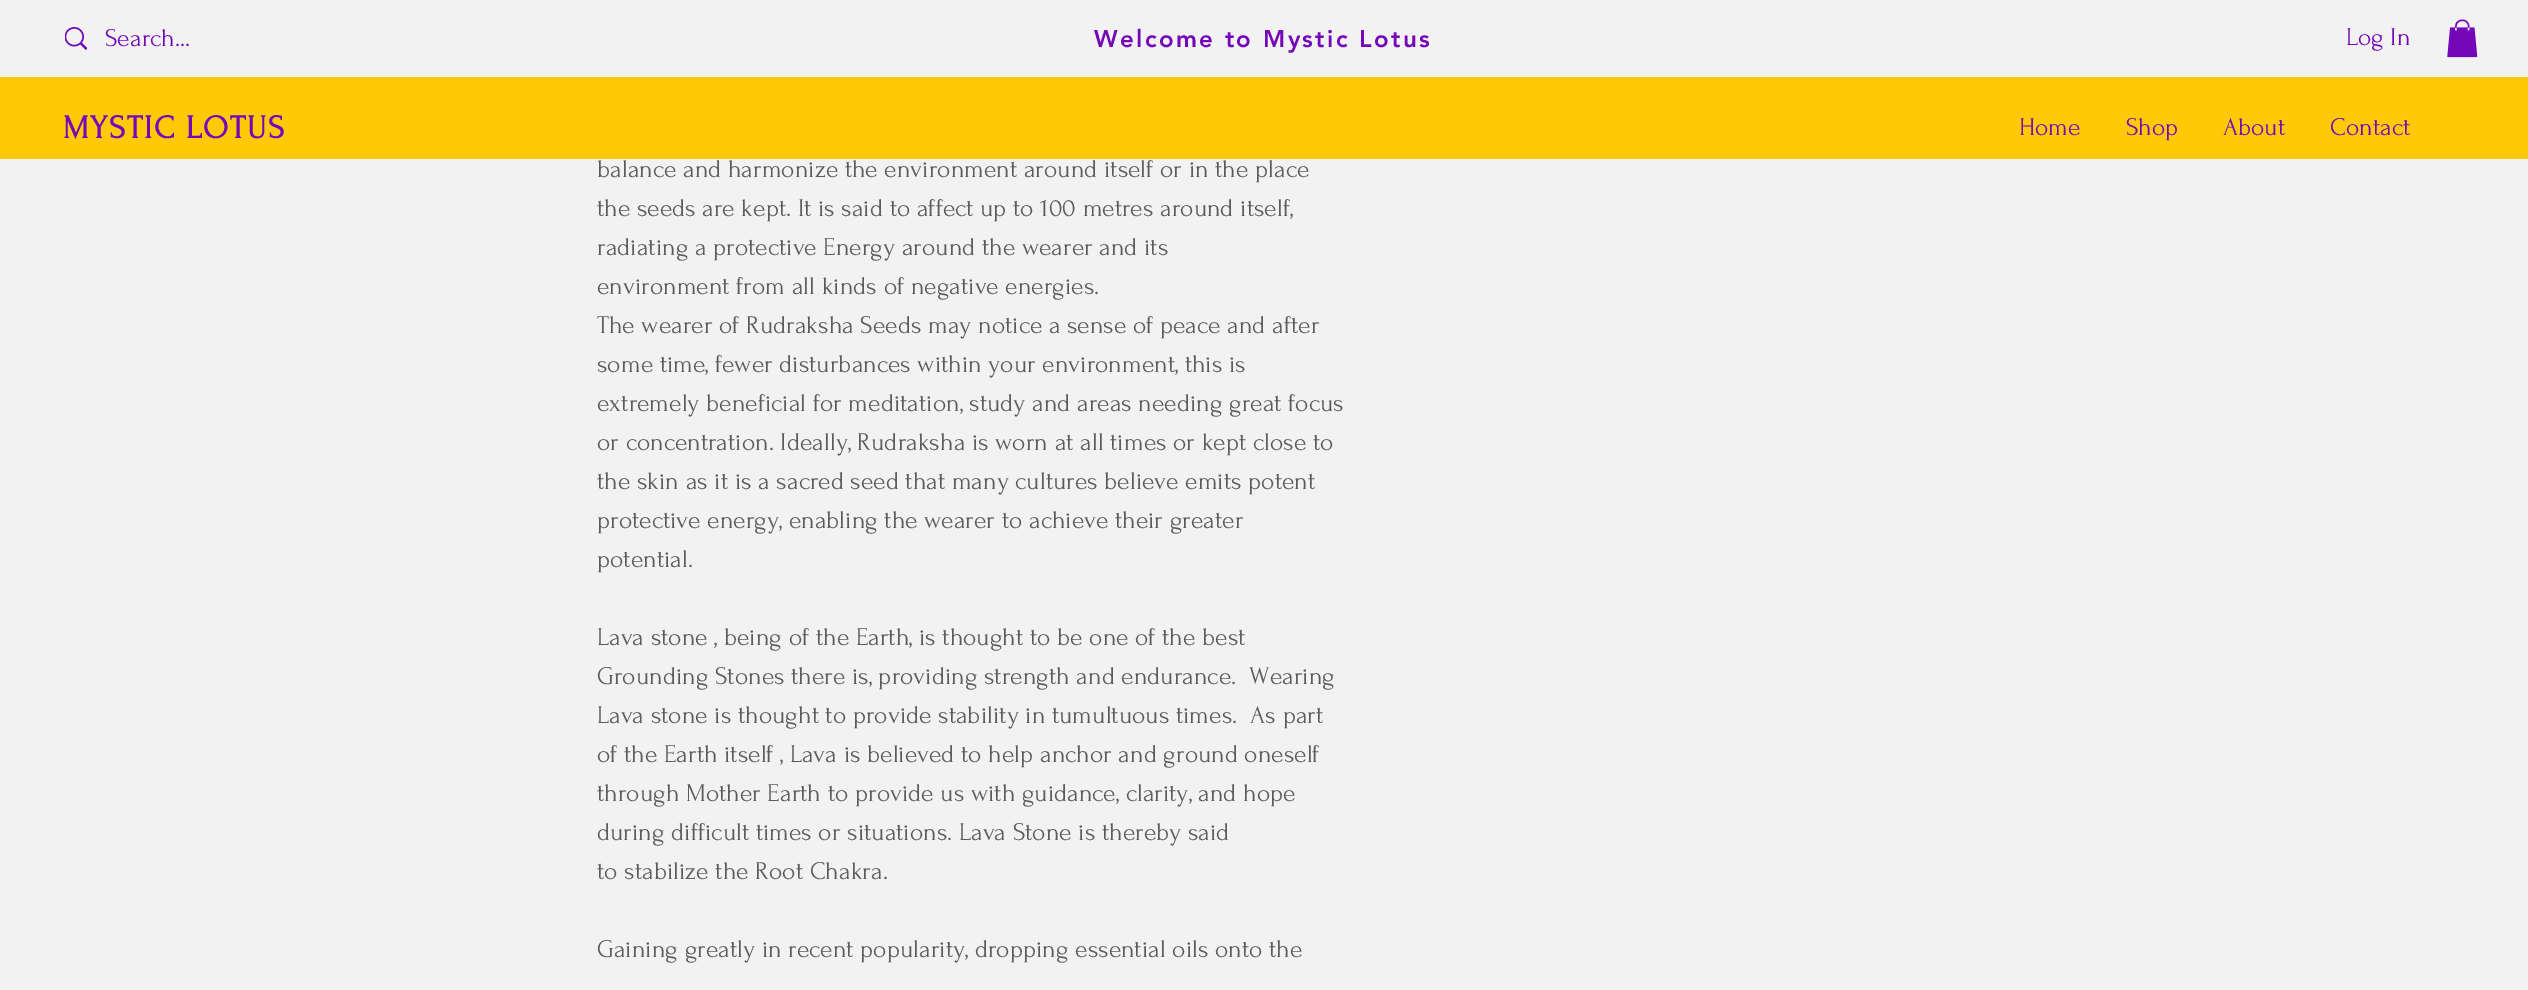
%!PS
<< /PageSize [2528 990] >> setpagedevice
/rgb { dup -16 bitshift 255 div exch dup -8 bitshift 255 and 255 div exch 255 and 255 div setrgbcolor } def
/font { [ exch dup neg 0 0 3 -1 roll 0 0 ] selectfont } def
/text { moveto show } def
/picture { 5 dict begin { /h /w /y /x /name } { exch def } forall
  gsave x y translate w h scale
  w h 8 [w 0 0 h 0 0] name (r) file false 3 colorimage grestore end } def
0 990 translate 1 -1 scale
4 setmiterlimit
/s1 { /Forum-Regular 25.5 font 16#7407B8 rgb } def
/s2 { /Forum-Regular 25.5 font 16#5B5B5B rgb } def
16#F2F2F2 rgb
0 0 2528 990 rectfill
(pic1.raw) 65 27 22 23 picture
s1
(Search...) 105 46 text
/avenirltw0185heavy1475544-Black 24 font
1094 47 moveto 2.4 0 (Welcome to Mystic Lotus) ashow
s1
(Log In) 2346 45 text
(pic2.raw) 2447 19 31 39 picture
16#FFC907 rgb
0 77 2528 82 rectfill
/Forum-Bold 33 font
16#7407B8 rgb
63 138 moveto 1.6 0 (MYSTIC LOTUS) ashow
s1
(Home) 2019 135 text
(Shop) 2126 135 text
(About) 2223 135 text
(Contact) 2330 135 text
s2
(balance and harmonize the environment around itself or in the place) 597 177 text
(the seeds are kept. It is said to affect up to 100 metres around itself,) 597 216 text
(radiating a protective Energy around the wearer and its) 597 255 text
(environment from all kinds of negative energies.) 597 294 text
(The wearer of Rudraksha Seeds may notice a sense of peace and after) 597 333 text
(some time, fewer disturbances within your environment, this is) 597 372 text
(extremely beneficial for meditation, study and areas needing great focus) 597 411 text
(or concentration. Ideally, Rudraksha is worn at all times or kept close to) 597 450 text
(the skin as it is a sacred seed that many cultures believe emits potent) 597 489 text
(protective energy, enabling the wearer to achieve their greater) 597 528 text
(potential.) 597 567 text
(Lava stone , being of the Earth, is thought to be one of the best) 597 645 text
(Grounding Stones there is, providing strength and endurance.  Wearing) 597 684 text
(Lava stone is thought to provide stability in tumultuous times.  As part) 597 723 text
(of the Earth itself , Lava is believed to help anchor and ground oneself) 597 762 text
(through Mother Earth to provide us with guidance, clarity, and hope) 597 801 text
(during difficult times or situations. Lava Stone is thereby said) 597 840 text
(to stabilize the Root Chakra.) 597 879 text
(Gaining greatly in recent popularity, dropping essential oils onto the) 597 957 text
showpage
